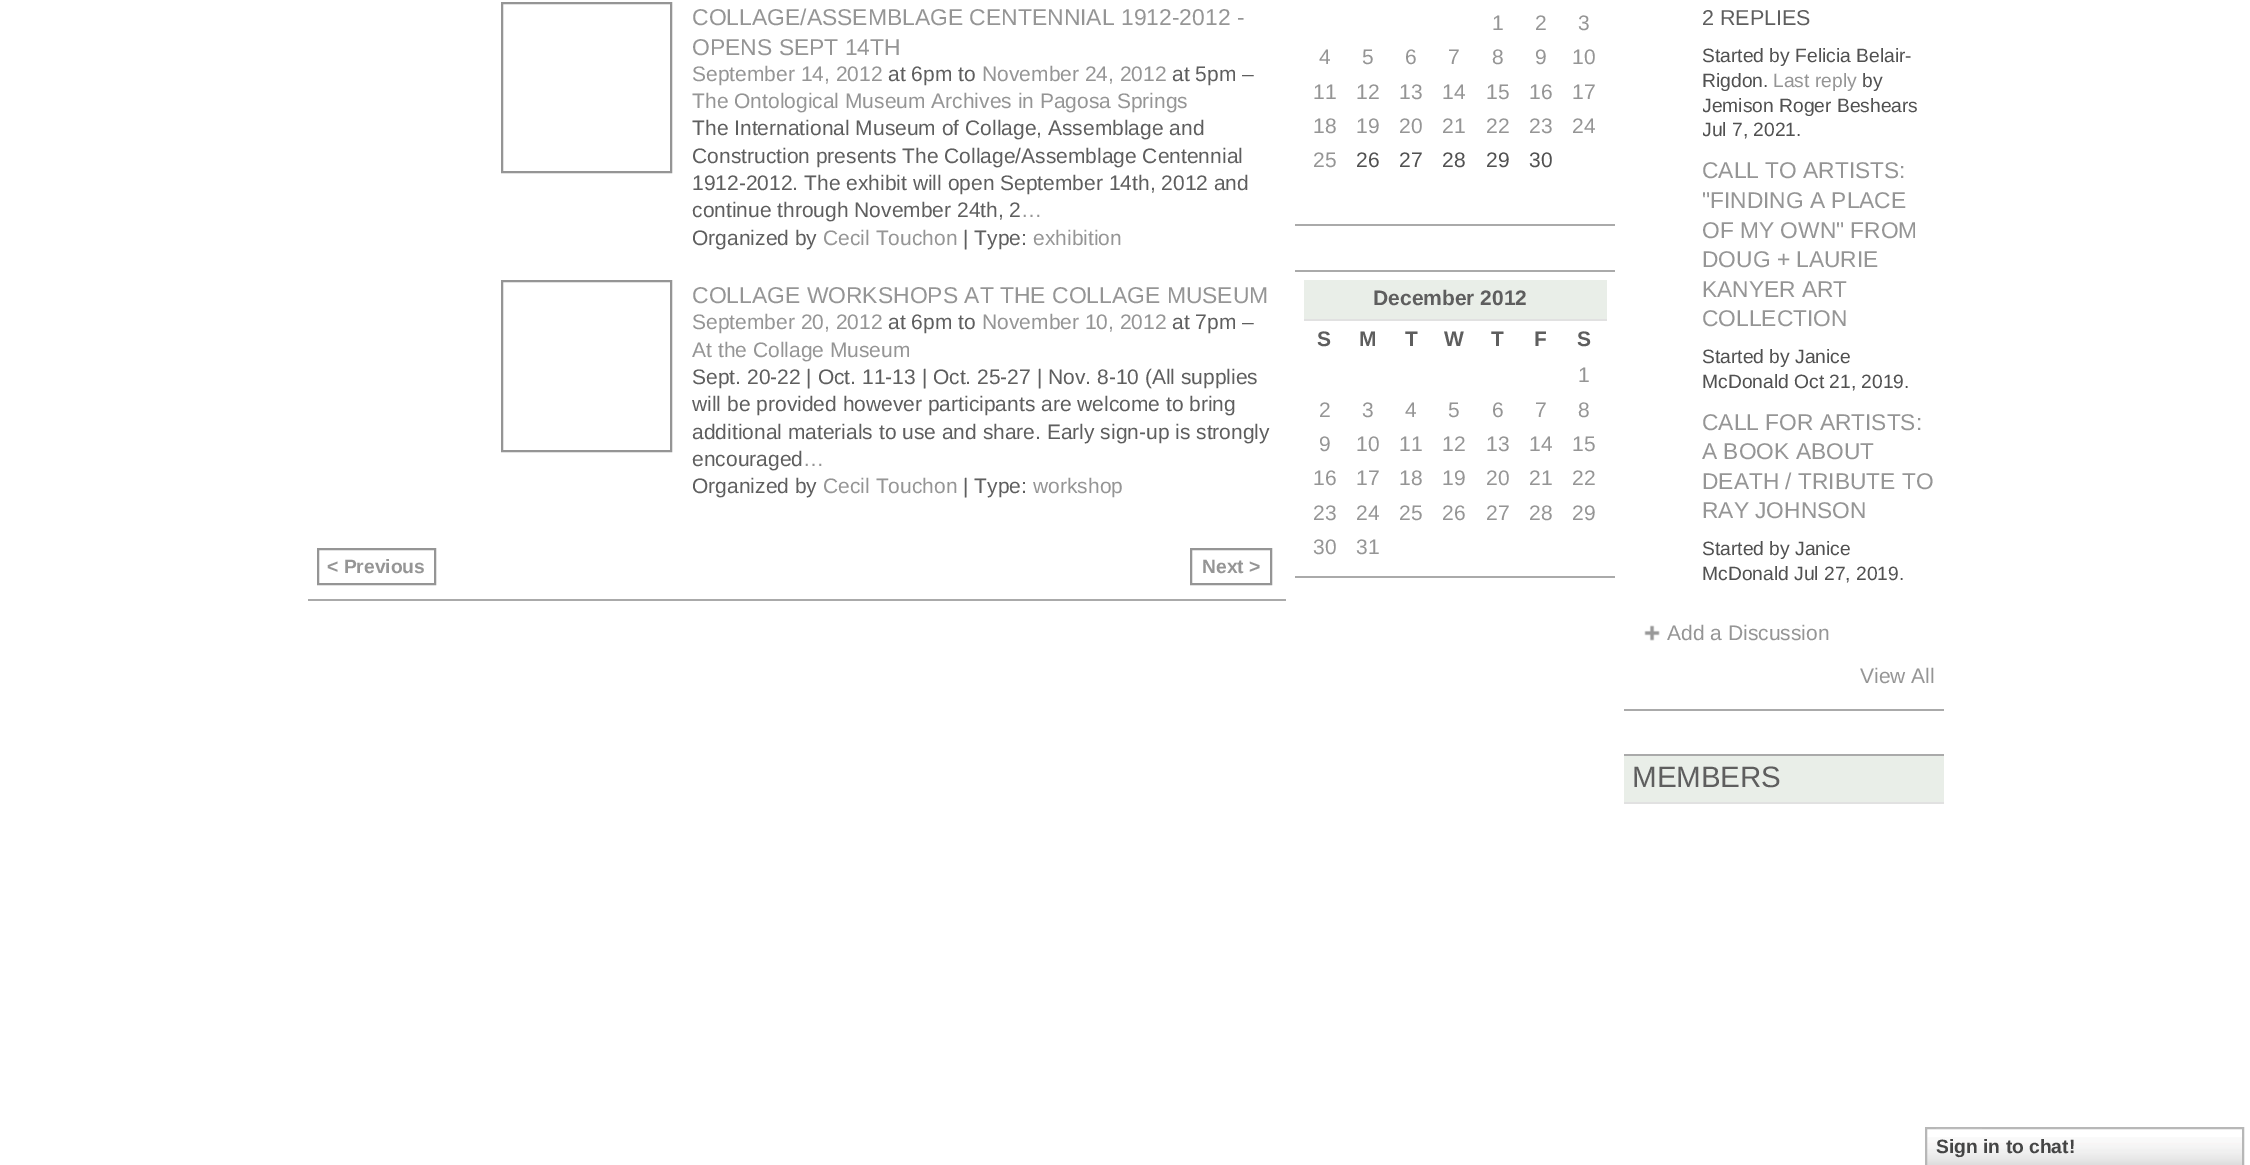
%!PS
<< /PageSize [2250 1165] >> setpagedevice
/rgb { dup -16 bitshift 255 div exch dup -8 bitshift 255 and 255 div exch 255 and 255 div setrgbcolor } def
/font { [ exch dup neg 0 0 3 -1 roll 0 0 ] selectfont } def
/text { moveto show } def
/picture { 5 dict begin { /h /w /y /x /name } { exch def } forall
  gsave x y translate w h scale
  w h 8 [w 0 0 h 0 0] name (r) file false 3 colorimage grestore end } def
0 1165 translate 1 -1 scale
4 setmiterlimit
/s1 { /LiberationSans-Regular 22.9 font 16#959595 rgb } def
/s2 { /LiberationSans-Regular 21 font 16#959595 rgb } def
/s3 { /LiberationSans-Regular 21 font 16#5E5E5E rgb } def
/s4 { /LiberationSans-Bold 19.25 font 16#959595 rgb } def
/s5 { /LiberationSans-Regular 21 font 16#515151 rgb } def
/s6 { /LiberationSans-Bold 21 font 16#5E5E5E rgb } def
/s7 { /LiberationSans-Regular 21.5 font 16#5E5E5E rgb } def
/s8 { /LiberationSans-Regular 19.25 font 16#515151 rgb } def
/s9 { /LiberationSans-Regular 19.25 font 16#959595 rgb } def
/s10 { /LiberationSans-Regular 22.75 font 16#959595 rgb } def
/s11 { /LiberationSans-Regular 29.5 font 16#5E5E5E rgb } def
/s12 { /LiberationSans-Bold 19.25 font 16#454545 rgb } def
16#FFFFFF rgb
0 0 2250 1165 rectfill
16#AAAAAA rgb
308 599 978 2 rectfill
16#959595 rgb
2 setlinewidth
502 3 169 169 rectstroke
s1
(COLLAGE/ASSEMBLAGE CENTENNIAL 1912-2012 -) 692 25 text
(OPENS SEPT 14TH) 692 55 text
s2
(September 14, 2012) 692 81 text
s3
(at 6pm to) 888 81 text
s2
(November 24, 2012) 982 81 text
s3
(at 5pm –) 1172 81 text
s2
(The Ontological Museum Archives in Pagosa Springs) 692 108 text
s3
(The International Museum of Collage, Assemblage and) 692 135 text
(Construction presents The Collage/Assemblage Centennial) 692 163 text
(1912-2012. The exhibit will open September 14th, 2012 and) 692 190 text
(continue through November 24th, 2) 692 217 text
s2
(…) 1021 217 text
s3
(Organized by) 692 245 text
s2
(Cecil Touchon) 823 245 text
s3
(| Type:) 963 245 text
s2
(exhibition) 1033 245 text
502 281 169 170 rectstroke
s1
(COLLAGE WORKSHOPS AT THE COLLAGE MUSEUM) 692 303 text
s2
(September 20, 2012) 692 329 text
s3
(at 6pm to) 888 329 text
s2
(November 10, 2012) 982 329 text
s3
(at 7pm –) 1172 329 text
s2
(At the Collage Museum) 692 357 text
s3
(Sept. 20-22 | Oct. 11-13 | Oct. 25-27 | Nov. 8-10 \(All supplies) 692 384 text
(will be provided however participants are welcome to bring) 692 411 text
(additional materials to use and share. Early sign-up is strongly) 692 439 text
(encouraged) 692 466 text
s2
(…) 803 466 text
s3
(Organized by) 692 493 text
s2
(Cecil Touchon) 823 493 text
s3
(| Type:) 963 493 text
s2
(workshop) 1033 493 text
318 549 117 35 rectstroke
s4
(< Previous) 327 573 text
1191 549 80 35 rectstroke
(Next >) 1202 573 text
16#AAAAAA rgb
1295 224 320 2 rectfill
s2
(1) 1492 30 text
(2) 1535 30 text
(3) 1578 30 text
(4) 1319 64 text
(5) 1362 64 text
(6) 1405 64 text
(7) 1448 64 text
(8) 1492 64 text
(9) 1535 64 text
(10) 1572 64 text
(11) 1313 99 text
(12) 1356 99 text
(13) 1399 99 text
(14) 1442 99 text
(15) 1486 99 text
(16) 1529 99 text
(17) 1572 99 text
(18) 1313 133 text
(19) 1356 133 text
(20) 1399 133 text
(21) 1442 133 text
(22) 1486 133 text
(23) 1529 133 text
(24) 1572 133 text
(25) 1313 167 text
s5
(26) 1356 167 text
(27) 1399 167 text
(28) 1442 167 text
(29) 1486 167 text
(30) 1529 167 text
16#AAAAAA rgb
1295 270 320 2 rectfill
1295 576 320 2 rectfill
16#E9EEE8 rgb
1304 280 303 39 rectfill
16#E1E1E1 rgb
1304 319 303 2 rectfill
s6
(December 2012) 1373 305 text
(S) 1317 346 text
(M) 1359 346 text
(T) 1405 346 text
(W) 1444 346 text
(T) 1491 346 text
(F) 1534 346 text
(S) 1577 346 text
s2
(1) 1578 382 text
(2) 1319 417 text
(3) 1362 417 text
(4) 1405 417 text
(5) 1448 417 text
(6) 1492 417 text
(7) 1535 417 text
(8) 1578 417 text
(9) 1319 451 text
(10) 1356 451 text
(11) 1399 451 text
(12) 1442 451 text
(13) 1486 451 text
(14) 1529 451 text
(15) 1572 451 text
(16) 1313 485 text
(17) 1356 485 text
(18) 1399 485 text
(19) 1442 485 text
(20) 1486 485 text
(21) 1529 485 text
(22) 1572 485 text
(23) 1313 520 text
(24) 1356 520 text
(25) 1399 520 text
(26) 1442 520 text
(27) 1486 520 text
(28) 1529 520 text
(29) 1572 520 text
(30) 1313 554 text
(31) 1356 554 text
16#AAAAAA rgb
1624 709 320 2 rectfill
s7
(2 REPLIES) 1702 25 text
s8
(Started by Felicia Belair-) 1702 62 text
(Rigdon.) 1702 87 text
s9
(Last reply) 1773 87 text
s8
(by) 1862 87 text
gsave
1703 42 233 100 rectclip
(Jemison Roger Beshears) 1702 112 text
(Jul 7, 2021.) 1702 136 text
grestore
s10
(CALL TO ARTISTS:) 1702 178 text
("FINDING A PLACE) 1702 208 text
(OF MY OWN" FROM) 1702 238 text
(DOUG + LAURIE) 1702 267 text
(KANYER ART) 1702 297 text
(COLLECTION) 1702 326 text
s8
(Started by Janice) 1702 363 text
(McDonald Oct 21, 2019.) 1702 388 text
s10
(CALL FOR ARTISTS:) 1702 430 text
(A BOOK ABOUT) 1702 459 text
(DEATH / TRIBUTE TO) 1702 489 text
(RAY JOHNSON) 1702 518 text
s8
(Started by Janice) 1702 555 text
(McDonald Jul 27, 2019.) 1702 580 text
(pic1.raw) 1644 625 16 16 picture
s2
(Add a Discussion) 1667 640 text
(View All) 1860 683 text
16#AAAAAA rgb
1624 754 320 2 rectfill
16#E9EEE8 rgb
1624 756 320 46 rectfill
16#E1E1E1 rgb
1624 802 320 2 rectfill
s11
(MEMBERS) 1632 787 text
(pic2.raw) 1927 1137 315 28 picture
16#B7B7B7 rgb
1926 1128 317 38 rectstroke
16#BBBBBB rgb
1936 1128 46 1 rectfill
s12
(Sign in to chat!) 1936 1153 text
showpage
